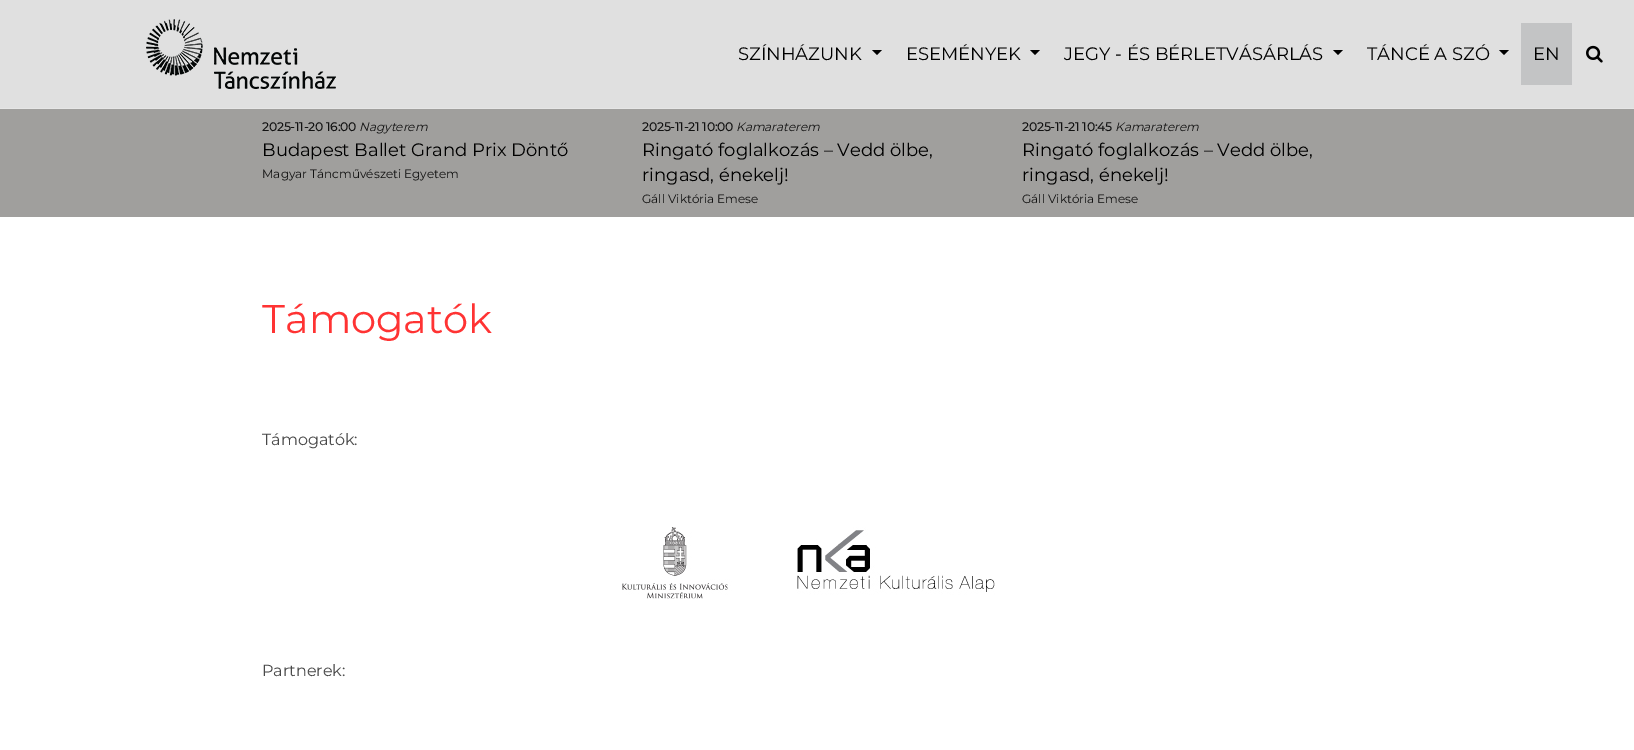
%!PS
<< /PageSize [1634 750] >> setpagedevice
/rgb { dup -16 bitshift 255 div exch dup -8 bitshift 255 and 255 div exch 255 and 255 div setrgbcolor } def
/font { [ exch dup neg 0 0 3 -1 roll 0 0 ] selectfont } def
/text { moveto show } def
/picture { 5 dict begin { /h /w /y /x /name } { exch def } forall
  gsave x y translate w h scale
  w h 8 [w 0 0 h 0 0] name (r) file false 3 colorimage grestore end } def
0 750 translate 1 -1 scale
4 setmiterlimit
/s1 { /Montserrat-Thin 18 font 16#000000 rgb } def
/s2 { /Montserrat-Bold 12 font 16#121212 rgb } def
/s3 { /Montserrat-ThinItalic 12 font 16#121212 rgb } def
/s4 { /Montserrat-Thin 12 font 16#121212 rgb } def
/s5 { /Montserrat-Thin 40 font 16#FF3333 rgb } def
/s6 { /Montserrat-Thin 16 font 16#484848 rgb } def
16#FFFFFF rgb
0 0 1634 750 rectfill
16#E0E0E0 rgb
0 0 1634 108 rectfill
(pic1.raw) 146 19 190 70 picture
s1
(SZÍNHÁZUNK) 738 60 text
872 50 moveto 882 50 lineto 877 55 lineto closepath fill
(ESEMÉNYEK) 906 60 text
1030 50 moveto 1040 50 lineto 1035 55 lineto closepath fill
(JEGY - ÉS BÉRLETVÁSÁRLÁS) 1064 60 text
1333 50 moveto 1343 50 lineto 1338 55 lineto closepath fill
(TÁNCÉ A SZÓ) 1367 60 text
1499 50 moveto 1509 50 lineto 1504 55 lineto closepath fill
16#C3C4C5 rgb
1521 23 51 62 rectfill
s1
(EN) 1533 60 text
(pic2.raw) 1586 45 17 18 picture
16#A09F9D rgb
0 109 1634 108 rectfill
16#E6E6E6 rgb
0 108 1634 1 rectfill
s2
(2025-11-20 16:00) 262 131 text
s3
(Nagyterem) 359 131 text
s1
(Budapest Ballet Grand Prix Döntő) 262 156 text
s4
(Magyar Táncművészeti Egyetem) 262 178 text
s2
(2025-11-21 10:00) 642 131 text
s3
(Kamaraterem) 736 131 text
s1
(Ringató foglalkozás – Vedd ölbe,) 642 156 text
(ringasd, énekelj!) 642 181 text
s4
(Gáll Viktória Emese) 642 203 text
s2
(2025-11-21 10:45) 1022 131 text
s3
(Kamaraterem) 1115 131 text
s1
(Ringató foglalkozás – Vedd ölbe,) 1022 156 text
(ringasd, énekelj!) 1022 181 text
s4
(Gáll Viktória Emese) 1022 203 text
s5
(Támogatók) 262 333 text
s6
(Támogatók:) 262 445 text
(pic3.raw) 622 527 373 72 picture
(Partnerek:) 262 676 text
showpage
